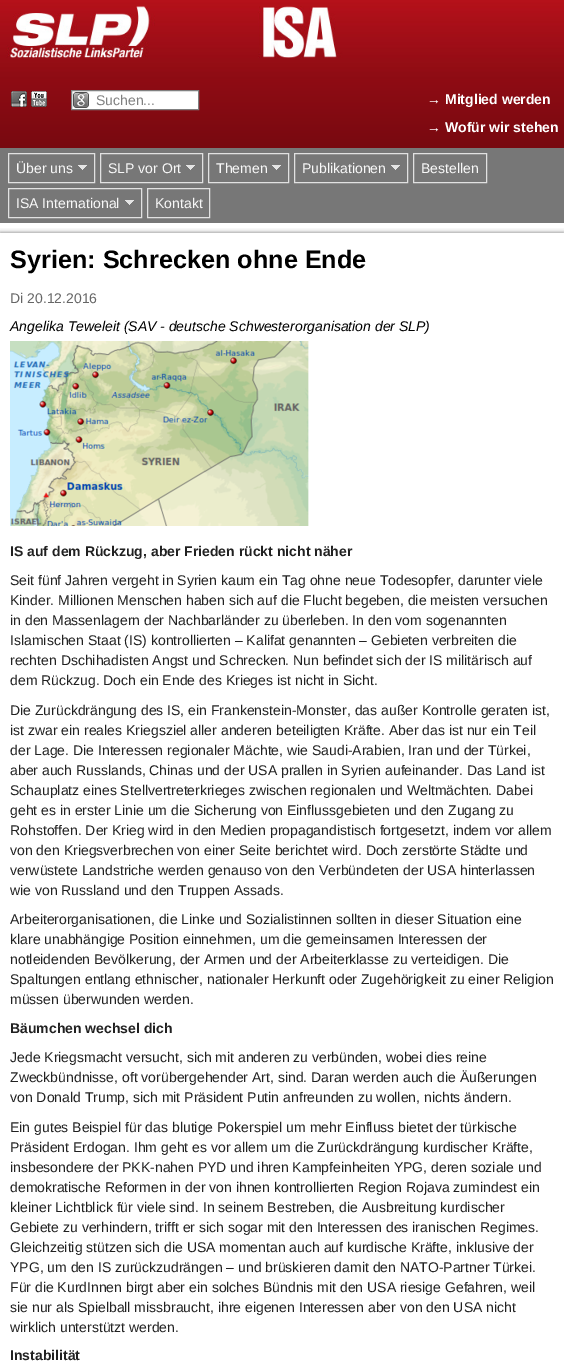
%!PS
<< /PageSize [564 1366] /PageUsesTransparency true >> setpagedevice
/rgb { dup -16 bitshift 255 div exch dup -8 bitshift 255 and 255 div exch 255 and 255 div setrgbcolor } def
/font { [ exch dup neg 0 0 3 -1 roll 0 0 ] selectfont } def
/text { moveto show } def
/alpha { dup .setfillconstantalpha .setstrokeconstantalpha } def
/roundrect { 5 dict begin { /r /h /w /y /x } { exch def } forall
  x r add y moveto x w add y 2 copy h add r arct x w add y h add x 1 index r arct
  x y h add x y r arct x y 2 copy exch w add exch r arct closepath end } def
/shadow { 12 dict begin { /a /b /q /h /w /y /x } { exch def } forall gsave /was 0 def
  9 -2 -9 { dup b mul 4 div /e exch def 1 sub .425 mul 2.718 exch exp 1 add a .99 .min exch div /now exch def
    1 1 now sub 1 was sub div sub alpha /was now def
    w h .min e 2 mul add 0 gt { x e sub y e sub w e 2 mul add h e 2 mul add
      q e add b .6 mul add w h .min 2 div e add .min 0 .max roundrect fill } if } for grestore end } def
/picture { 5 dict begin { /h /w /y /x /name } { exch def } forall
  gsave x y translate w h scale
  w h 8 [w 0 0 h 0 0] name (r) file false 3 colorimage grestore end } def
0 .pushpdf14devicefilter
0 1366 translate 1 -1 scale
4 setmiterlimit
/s1 { /LiberationSans-Regular 14 font 16#808080 rgb } def
/s2 { /LiberationSans-Bold 14 font 16#FFFFFF rgb } def
/s3 { /LiberationSans-Regular 14 font 16#F8F8F8 rgb } def
/s4 { /LiberationSans-Bold 25.25 font 16#000000 rgb } def
/s5 { /LiberationSans-Regular 14 font 16#666666 rgb } def
/s6 { /LiberationSans-Italic 14 font 16#000000 rgb } def
/s7 { /LiberationSans-Bold 14 font 16#212121 rgb } def
/s8 { /LiberationSans-Regular 14 font 16#212121 rgb } def
16#FFFFFF rgb
0 0 564 1366 rectfill
(pic1.raw) 0 0 564 79 picture
gsave 0 79 moveto 564 79 lineto 564 148 lineto 0 148 lineto closepath clip newpath
<< /ShadingType 2 /ColorSpace /DeviceRGB /Coords [282 79 282 148] /Extend [true true] /Function << /FunctionType 2 /Domain [0 1] /C0 [0.561 0.047 0.078] /C1 [0.471 0.035 0.063] /N 1 >> >> shfill grestore
(pic2.raw) 11 91 16 16 picture
(pic3.raw) 31 91 16 16 picture
72 91 126 18 rectfill
(pic4.raw) 73 92 16 16 picture
16#808080 rgb
71.5 90.5 127 19 rectstroke
s1
(Suchen...) 96 105 text
s2
(→ Mitglied werden) 427 104 text
(→ Wofür wir stehen) 427 132 text
16#777777 rgb
0 148 564 75 rectfill
16#E1E1E1 rgb
8.5 153.5 86 29 rectstroke
s3
(Über uns) 16 173 text
(pic5.raw) 78 165 9 5 picture
16#E1E1E1 rgb
100.5 153.5 102 29 rectstroke
s3
(SLP vor Ort) 108 173 text
(pic5.raw) 186 165 9 5 picture
16#E1E1E1 rgb
208.5 153.5 80 29 rectstroke
s3
(Themen) 216 173 text
(pic5.raw) 272 165 9 5 picture
16#E1E1E1 rgb
294.5 153.5 113 29 rectstroke
s3
(Publikationen) 302 173 text
(pic5.raw) 391 165 9 5 picture
16#E1E1E1 rgb
413.5 153.5 73 29 rectstroke
s3
(Bestellen) 421 173 text
16#E1E1E1 rgb
8.5 188.5 133 29 rectstroke
s3
(ISA International) 16 208 text
(pic5.raw) 125 200 9 5 picture
16#E1E1E1 rgb
147.5 188.5 62 29 rectstroke
s3
(Kontakt) 155 208 text
gsave
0 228 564 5 rectclip
16#777777 rgb
0 233 564 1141 0 2.5 1 shadow
grestore
s4
(Syrien: Schrecken ohne Ende) 10 268 text
s5
(Di 20.12.2016) 10 303 text
s6
(Angelika Teweleit \(SAV - deutsche Schwesterorganisation der SLP\)) 10 331 text
(pic6.raw) 10 341 299 185 picture
s7
(IS auf dem Rückzug, aber Frieden rückt nicht näher) 10 556 text
s8
(Seit fünf Jahren vergeht in Syrien kaum ein Tag ohne neue Todesopfer, darunter viele) 10 585 text
(Kinder. Millionen Menschen haben sich auf die Flucht begeben, die meisten versuchen) 10 605 text
(in den Massenlagern der Nachbarländer zu überleben. In den vom sogenannten) 10 625 text
(Islamischen Staat \(IS\) kontrollierten – Kalifat genannten – Gebieten verbreiten die) 10 645 text
(rechten Dschihadisten Angst und Schrecken. Nun befindet sich der IS militärisch auf) 10 665 text
(dem Rückzug. Doch ein Ende des Krieges ist nicht in Sicht.) 10 685 text
(Die Zurückdrängung des IS, ein Frankenstein-Monster, das außer Kontrolle geraten ist,) 10 715 text
(ist zwar ein reales Kriegsziel aller anderen beteiligten Kräfte. Aber das ist nur ein Teil) 10 735 text
(der Lage. Die Interessen regionaler Mächte, wie Saudi-Arabien, Iran und der Türkei,) 10 755 text
(aber auch Russlands, Chinas und der USA prallen in Syrien aufeinander. Das Land ist) 10 775 text
(Schauplatz eines Stellvertreterkrieges zwischen regionalen und Weltmächten. Dabei) 10 795 text
(geht es in erster Linie um die Sicherung von Einflussgebieten und den Zugang zu) 10 815 text
(Rohstoffen. Der Krieg wird in den Medien propagandistisch fortgesetzt, indem vor allem) 10 835 text
(von den Kriegsverbrechen von einer Seite berichtet wird. Doch zerstörte Städte und) 10 855 text
(verwüstete Landstriche werden genauso von den Verbündeten der USA hinterlassen) 10 875 text
(wie von Russland und den Truppen Assads.) 10 895 text
(Arbeiterorganisationen, die Linke und Sozialistinnen sollten in dieser Situation eine) 10 924 text
(klare unabhängige Position einnehmen, um die gemeinsamen Interessen der) 10 944 text
(notleidenden Bevölkerung, der Armen und der Arbeiterklasse zu verteidigen. Die) 10 964 text
(Spaltungen entlang ethnischer, nationaler Herkunft oder Zugehörigkeit zu einer Religion) 10 984 text
(müssen überwunden werden.) 10 1004 text
s7
(Bäumchen wechsel dich) 10 1033 text
s8
(Jede Kriegsmacht versucht, sich mit anderen zu verbünden, wobei dies reine) 10 1062 text
(Zweckbündnisse, oft vorübergehender Art, sind. Daran werden auch die Äußerungen) 10 1082 text
(von Donald Trump, sich mit Präsident Putin anfreunden zu wollen, nichts ändern.) 10 1102 text
(Ein gutes Beispiel für das blutige Pokerspiel um mehr Einfluss bietet der türkische) 10 1132 text
(Präsident Erdogan. Ihm geht es vor allem um die Zurückdrängung kurdischer Kräfte,) 10 1152 text
(insbesondere der PKK-nahen PYD und ihren Kampfeinheiten YPG, deren soziale und) 10 1172 text
(demokratische Reformen in der von ihnen kontrollierten Region Rojava zumindest ein) 10 1192 text
(kleiner Lichtblick für viele sind. In seinem Bestreben, die Ausbreitung kurdischer) 10 1212 text
(Gebiete zu verhindern, trifft er sich sogar mit den Interessen des iranischen Regimes.) 10 1232 text
(Gleichzeitig stützen sich die USA momentan auch auf kurdische Kräfte, inklusive der) 10 1252 text
(YPG, um den IS zurückzudrängen – und brüskieren damit den NATO-Partner Türkei.) 10 1272 text
(Für die KurdInnen birgt aber ein solches Bündnis mit den USA riesige Gefahren, weil) 10 1292 text
(sie nur als Spielball missbraucht, ihre eigenen Interessen aber von den USA nicht) 10 1312 text
(wirklich unterstützt werden.) 10 1332 text
s7
(Instabilität) 10 1360 text
.poppdf14devicefilter showpage
